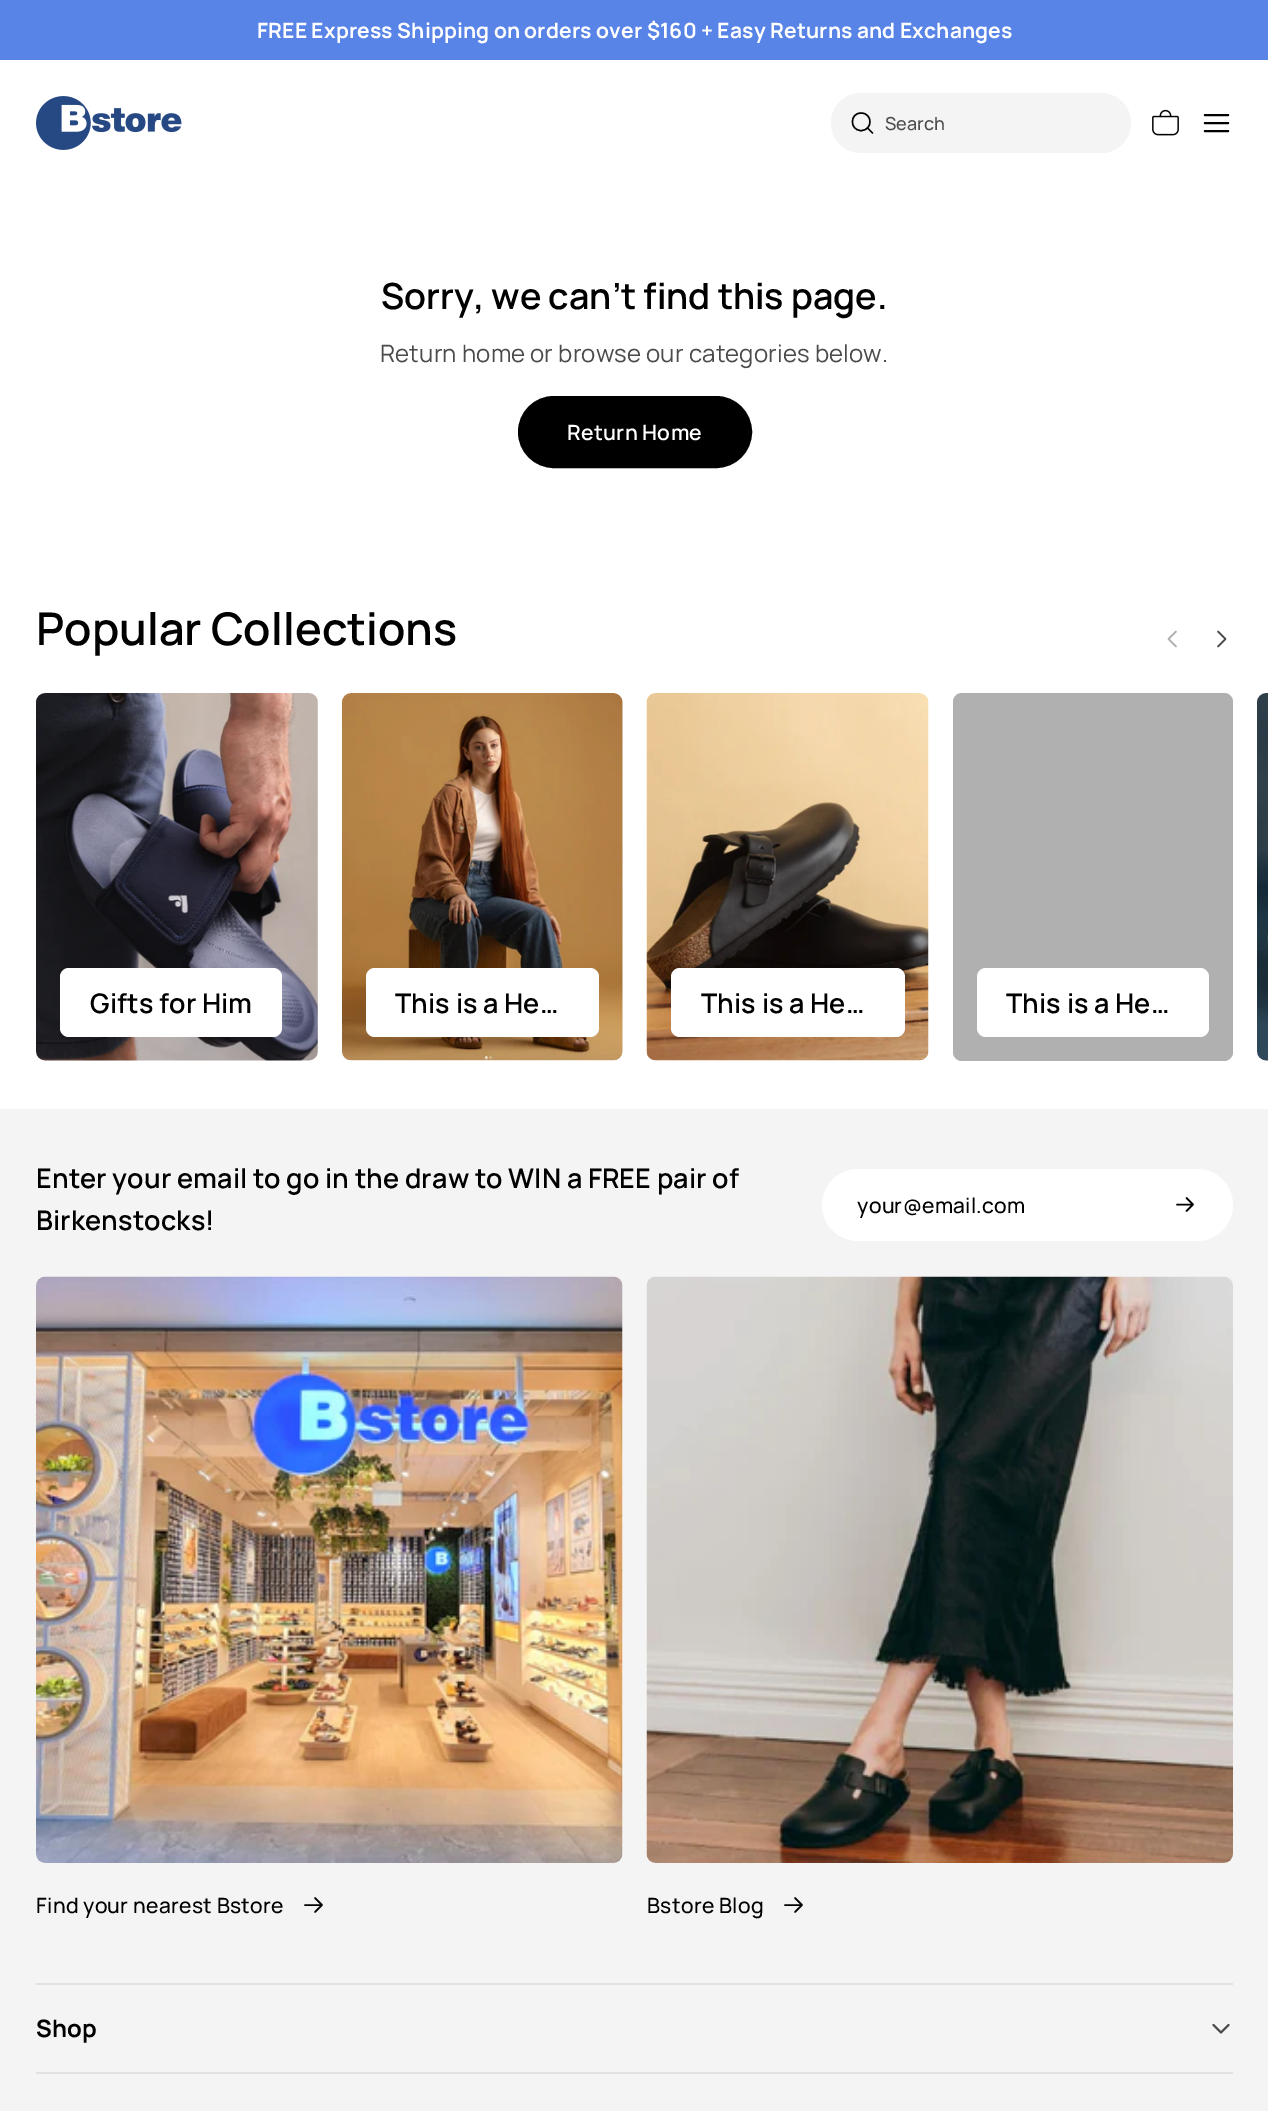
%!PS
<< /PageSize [1268 2111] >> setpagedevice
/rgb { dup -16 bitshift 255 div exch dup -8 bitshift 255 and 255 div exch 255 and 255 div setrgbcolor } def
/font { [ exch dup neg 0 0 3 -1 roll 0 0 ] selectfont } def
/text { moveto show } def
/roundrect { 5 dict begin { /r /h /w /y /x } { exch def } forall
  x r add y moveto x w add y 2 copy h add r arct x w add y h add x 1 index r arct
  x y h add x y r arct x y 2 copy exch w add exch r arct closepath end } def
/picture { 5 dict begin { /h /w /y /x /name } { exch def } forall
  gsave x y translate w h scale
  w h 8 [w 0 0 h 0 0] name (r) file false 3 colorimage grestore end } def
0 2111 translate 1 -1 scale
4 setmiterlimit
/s1 { /Manrope-Medium 18 font 16#4B4B4B rgb } def
/s2 { /Manrope-SemiBold 36 font 16#000000 rgb } def
/s3 { /Manrope-SemiBold 45 font 16#000000 rgb } def
16#FFFFFF rgb
0 0 1268 2111 rectfill
16#5784E6 rgb
0 0 1268 60 rectfill
/Manrope-Bold 21 font
16#FFFFFF rgb
257 38 moveto 0.15 0 (FREE Express Shipping on orders over $160 + Easy Returns and Exchanges) ashow
(pic1.raw) 36 96 146 54 picture
16#F4F4F4 rgb
831 93 300 60 30 roundrect fill
16#000000 rgb
1.4 setlinewidth
1 setlinecap
1 setlinejoin
861 130.5 moveto 873 130.5 873 113 861 113 curveto 849.5 113 849.5 130.5 861 130.5 curveto closepath 867.5 128 moveto 872.5 133 lineto stroke
s1
(Search) 885 130 text
(pic2.raw) 1152 109 27 27 picture
16#000000 rgb
2.1 setlinewidth
1205 123 moveto 1228 123 lineto 1205 115 moveto 1228 115 lineto 1205 131 moveto 1228 131 lineto stroke
s2
(Sorry, we can’t find this page.) 381 309 text
/Manrope-ExtraLight 24 font
16#4B4B4B rgb
380 362 moveto 0.15 0 (Return home or browse our categories below.) ashow
16#000000 rgb
519 397 232 70 35 roundrect gsave fill grestore
2 setlinewidth
0 setlinecap
0 setlinejoin
stroke
/Manrope-SemiBold 21 font
16#FFFFFF rgb
567 440 moveto 0.3 0 (Return Home) ashow
s3
(Popular Collections) 36 645 text
16#B0B0B0 rgb
1.5 setlinewidth
1 setlinecap
1 setlinejoin
1176 646.5 moveto 1168.5 639 lineto 1176 631.5 lineto stroke
16#4B4B4B rgb
1218 631.5 moveto 1225.5 639 lineto 1218 646.5 lineto stroke
(pic3.raw) 36 693 282 368 picture
16#FFFFFF rgb
60 968 222 69 9 roundrect fill
/Manrope-SemiBold 27 font
16#000000 rgb
90 1013 moveto 0.15 0 (Gifts for Him) ashow
(pic4.raw) 342 693 281 368 picture
16#FFFFFF rgb
366 968 233 69 9 roundrect fill
16#000000 rgb
395 1013 moveto 0.15 0 (This is a He…) ashow
(pic5.raw) 646 693 283 368 picture
16#FFFFFF rgb
671 968 234 69 9 roundrect fill
16#000000 rgb
701 1013 moveto 0.15 0 (This is a He…) ashow
16#B0B0B0 rgb
953 693 280 368 9 roundrect fill
16#FFFFFF rgb
977 968 232 69 9 roundrect fill
16#000000 rgb
1006 1013 moveto 0.15 0 (This is a He…) ashow
(pic6.raw) 1257 693 11 368 picture
16#F4F4F4 rgb
0 1109 1268 1002 rectfill
16#000000 rgb
36 1188 moveto 0.15 0 (Enter your email to go in the draw to WIN a FREE pair of) ashow
36 1230 moveto 0.15 0 (Birkenstocks!) ashow
16#FFFFFF rgb
822 1169 411 72 36 roundrect fill
/Manrope-Medium 21 font
16#000000 rgb
857 1213 moveto 0.3 0 (your@email.com) ashow
1177 1204.5 moveto 1193 1204.5 lineto 1186.5 1198 moveto 1193 1204.5 lineto 1186.5 1211 lineto stroke
(pic7.raw) 36 1276 587 587 picture
36 1913 moveto 0.3 0 (Find your nearest Bstore) ashow
305 1905 moveto 322 1905 lineto 315 1898 moveto 322 1905 lineto 315 1912 lineto stroke
(pic8.raw) 646 1276 587 587 picture
647 1913 moveto 0.3 0 (Bstore Blog) ashow
785 1905 moveto 802 1905 lineto 795 1898 moveto 802 1905 lineto 795 1912 lineto stroke
16#E1E1E1 rgb
36 1983 1197 2 rectfill
/Manrope-Bold 24 font
16#000000 rgb
36 2037 moveto 0.15 0 (Shop) ashow
16#4B4B4B rgb
2.1 setlinewidth
1228.5 2025 moveto 1221 2032.5 lineto 1213.5 2025 lineto stroke
16#E1E1E1 rgb
36 2072 1197 2 rectfill
showpage
